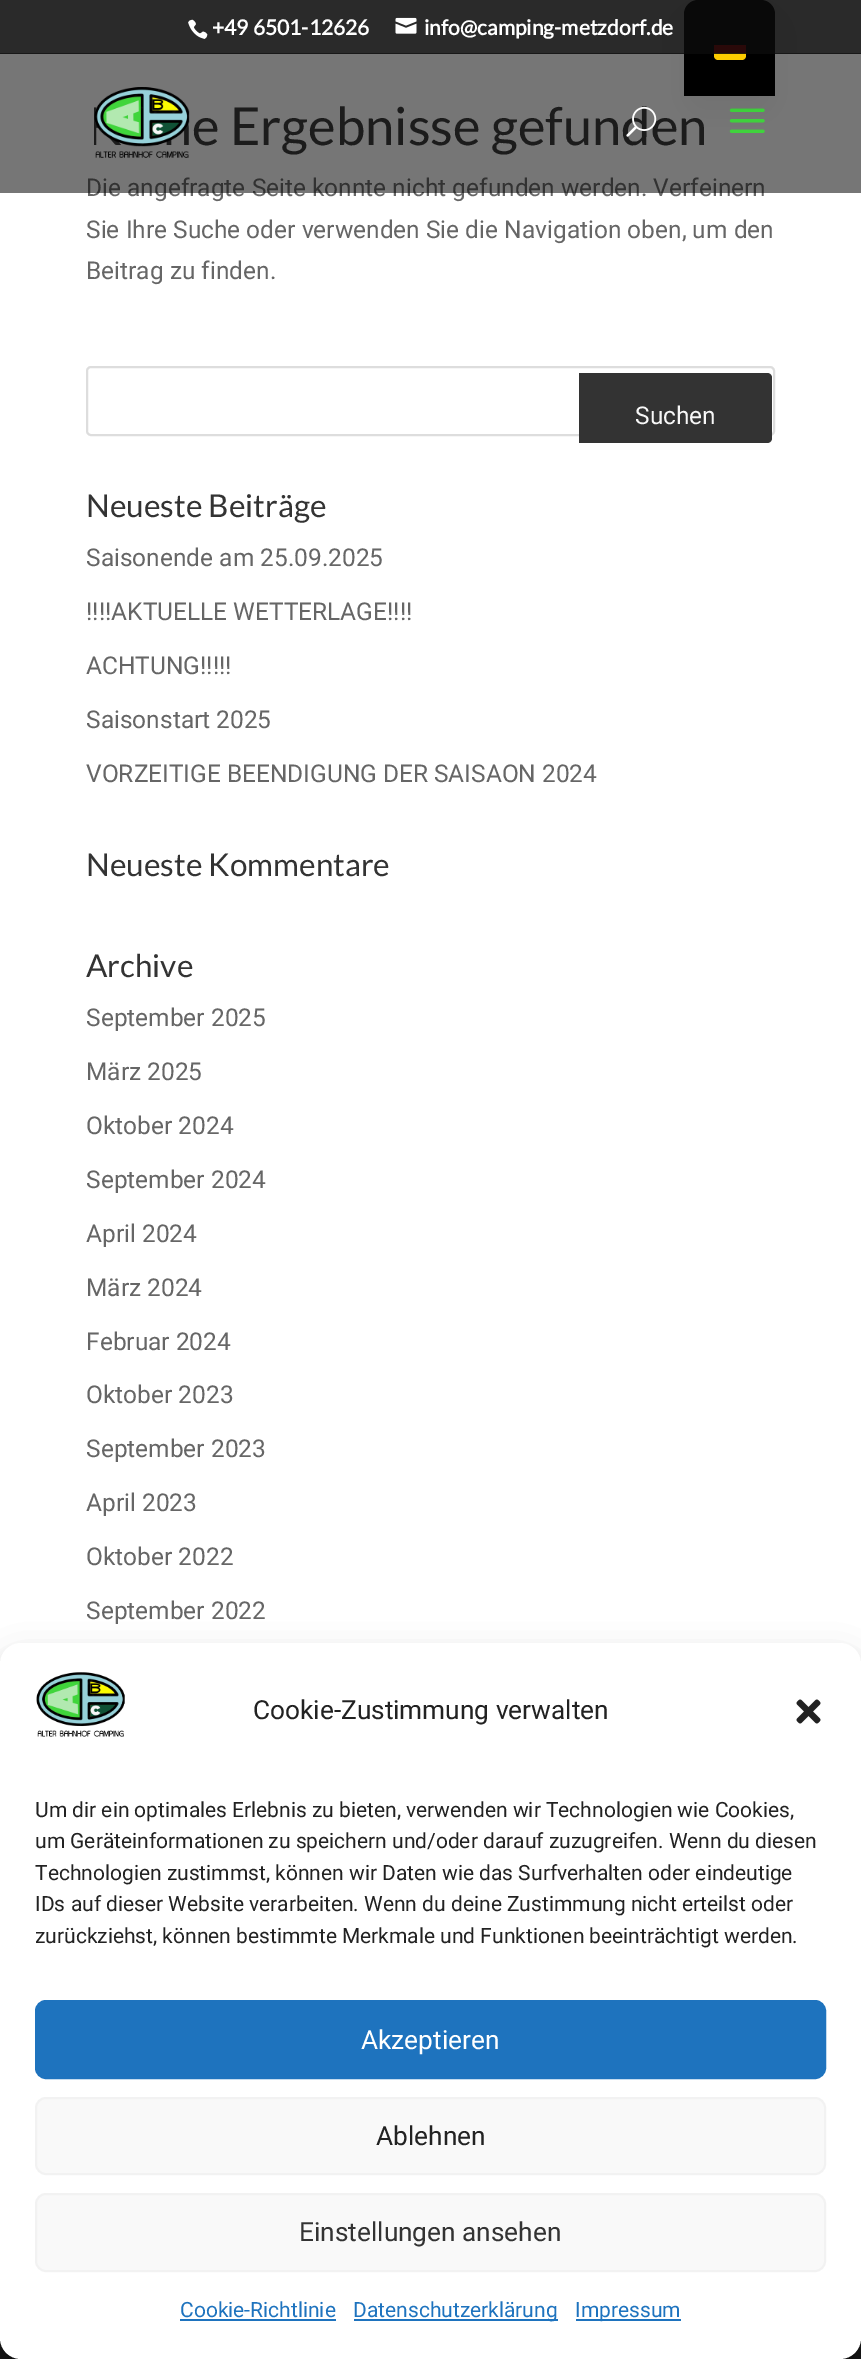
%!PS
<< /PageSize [861 2359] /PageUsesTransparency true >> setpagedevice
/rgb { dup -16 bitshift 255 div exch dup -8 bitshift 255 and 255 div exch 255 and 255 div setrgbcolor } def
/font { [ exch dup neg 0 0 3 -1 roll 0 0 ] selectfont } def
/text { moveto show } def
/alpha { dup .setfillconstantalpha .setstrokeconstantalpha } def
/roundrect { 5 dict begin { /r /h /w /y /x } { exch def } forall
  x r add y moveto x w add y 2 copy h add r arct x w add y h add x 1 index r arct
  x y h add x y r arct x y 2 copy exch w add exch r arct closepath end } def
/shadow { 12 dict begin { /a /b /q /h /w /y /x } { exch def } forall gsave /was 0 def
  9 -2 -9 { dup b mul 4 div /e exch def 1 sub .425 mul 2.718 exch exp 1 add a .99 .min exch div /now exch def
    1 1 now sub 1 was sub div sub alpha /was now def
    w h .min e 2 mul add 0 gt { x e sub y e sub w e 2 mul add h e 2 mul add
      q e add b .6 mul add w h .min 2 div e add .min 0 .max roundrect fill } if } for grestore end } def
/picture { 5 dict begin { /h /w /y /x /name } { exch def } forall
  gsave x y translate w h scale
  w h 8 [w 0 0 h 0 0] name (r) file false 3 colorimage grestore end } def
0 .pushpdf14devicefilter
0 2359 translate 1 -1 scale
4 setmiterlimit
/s1 { /Lato-Regular 52.5 font 16#333333 rgb } def
/s2 { /Roboto-Regular 24.5 font 16#666666 rgb } def
/s3 { /Lato-Bold 21 font 16#FFFFFF rgb } def
/s4 { /Roboto-Regular 24.5 font 16#F7F7F7 rgb } def
/s5 { /Lato-Regular 31.5 font 16#333333 rgb } def
/s6 { /Roboto-Regular 26.25 font 16#222222 rgb } def
/s7 { /Roboto-Regular 21 font 16#222222 rgb } def
/s8 { /Roboto-Regular 26.25 font 16#FFFFFF rgb } def
/s9 { /Roboto-Regular 26.25 font 16#333333 rgb } def
/s10 { /Roboto-Regular 21 font 16#1E73BE rgb } def
16#FFFFFF rgb
0 0 861 2359 rectfill
s1
(e Ergebnisse gefunden) 192 145 text
s2
(Die angefragte Seite konnte nicht gefunden werden. Verfeinern) 86 196 text
0.56 alpha
16#0A0A0A rgb
0 53 861 140 rectfill
1 alpha
(pic4.raw) 626 106 31 31 picture
(pic5.raw) 729 108 36 25 picture
16#000000 rgb
684 18 91 96 14 17.5 0.05 shadow
698 0 moveto 761 0 lineto 768.5 0 775 6.5 775 14 curveto 775 96 lineto 684 96 lineto 684 14 lineto 684 6.5 690.5 0 698 0 curveto closepath fill
16#FFCC00 rgb
714 53 moveto 746 53 lineto 746 56 lineto 746 58 744 60 742 60 curveto 718 60 lineto 716 60 714 58 714 56 curveto closepath fill
16#FF0000 rgb
714 45 32 8 rectfill
0.87 alpha
16#0A0A0A rgb
0 0 861 54 rectfill
1 alpha
(pic1.raw) 188 19 20 20 picture
s3
(+49 6501-12626) 212 35 text
(pic2.raw) 395 17 22 17 picture
(info@camping-metzdorf.de) 424 35 text
(pic3.raw) 94 87 96 71 picture
s2
(Sie Ihre Suche oder verwenden Sie die Navigation oben, um den) 86 238 text
(Beitrag zu finden.) 86 279 text
16#DDDDDD rgb
2 setlinewidth
87 367 687 68 4 roundrect stroke
16#333333 rgb
579 373 moveto 767 373 lineto 770 373 772 375 772 378 curveto 772 438 lineto 772 441 770 443 767 443 curveto 579 443 lineto closepath fill
s4
(Suchen) 635 424 text
s5
(Neueste Beiträge) 86 517 text
s2
(Saisonende am 25.09.2025) 86 566 text
(!!!!AKTUELLE WETTERLAGE!!!!) 86 620 text
(ACHTUNG!!!!!) 86 674 text
(Saisonstart 2025) 86 728 text
(VORZEITIGE BEENDIGUNG DER SAISAON 2024) 86 782 text
s5
(Neueste Kommentare) 86 876 text
(Archive) 86 977 text
s2
(September 2025) 86 1026 text
(März 2025) 86 1080 text
(Oktober 2024) 86 1134 text
(September 2024) 86 1188 text
(April 2024) 86 1242 text
(März 2024) 86 1296 text
(Februar 2024) 86 1350 text
(Oktober 2023) 86 1403 text
(September 2023) 86 1457 text
(April 2023) 86 1511 text
(Oktober 2022) 86 1565 text
(September 2022) 86 1619 text
16#171717 rgb
0 2338 861 21 rectfill
16#000000 rgb
0 1654 861 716 21 5 0.23 shadow
0 1661 861 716 21 17.5 0.19 shadow
16#FFFFFF rgb
0 1643 861 716 21 roundrect fill
(pic6.raw) 36 1672 89 65 picture
s6
(Cookie-Zustimmung verwalten) 253 1719 text
(pic7.raw) 796 1699 25 25 picture
s7
(Um dir ein optimales Erlebnis zu bieten, verwenden wir Technologien wie Cookies,) 35 1817 text
(um Geräteinformationen zu speichern und/oder darauf zuzugreifen. Wenn du diesen) 35 1848 text
(Technologien zustimmst, können wir Daten wie das Surfverhalten oder eindeutige) 35 1880 text
(IDs auf dieser Website verarbeiten. Wenn du deine Zustimmung nicht erteilst oder) 35 1911 text
(zurückziehst, können bestimmte Merkmale und Funktionen beeinträchtigt werden.) 35 1943 text
16#1E73BE rgb
36 2001 789 77 10 roundrect gsave fill grestore
stroke
s8
(Akzeptieren) 361 2049 text
16#F9F9F9 rgb
36 2098 789 76 10 roundrect gsave fill grestore
16#F2F2F2 rgb
stroke
s6
(Ablehnen) 376 2145 text
16#F9F9F9 rgb
36 2194 789 77 10 roundrect gsave fill grestore
16#F2F2F2 rgb
stroke
s9
(Einstellungen ansehen) 299 2241 text
s10
(Cookie-Richtlinie) 180 2317 text
180 2319 156 2 rectfill
354 2319 204 2 rectfill
(Datenschutzerklärung) 353 2317 text
576 2319 105 2 rectfill
(Impressum) 575 2317 text
.poppdf14devicefilter showpage
